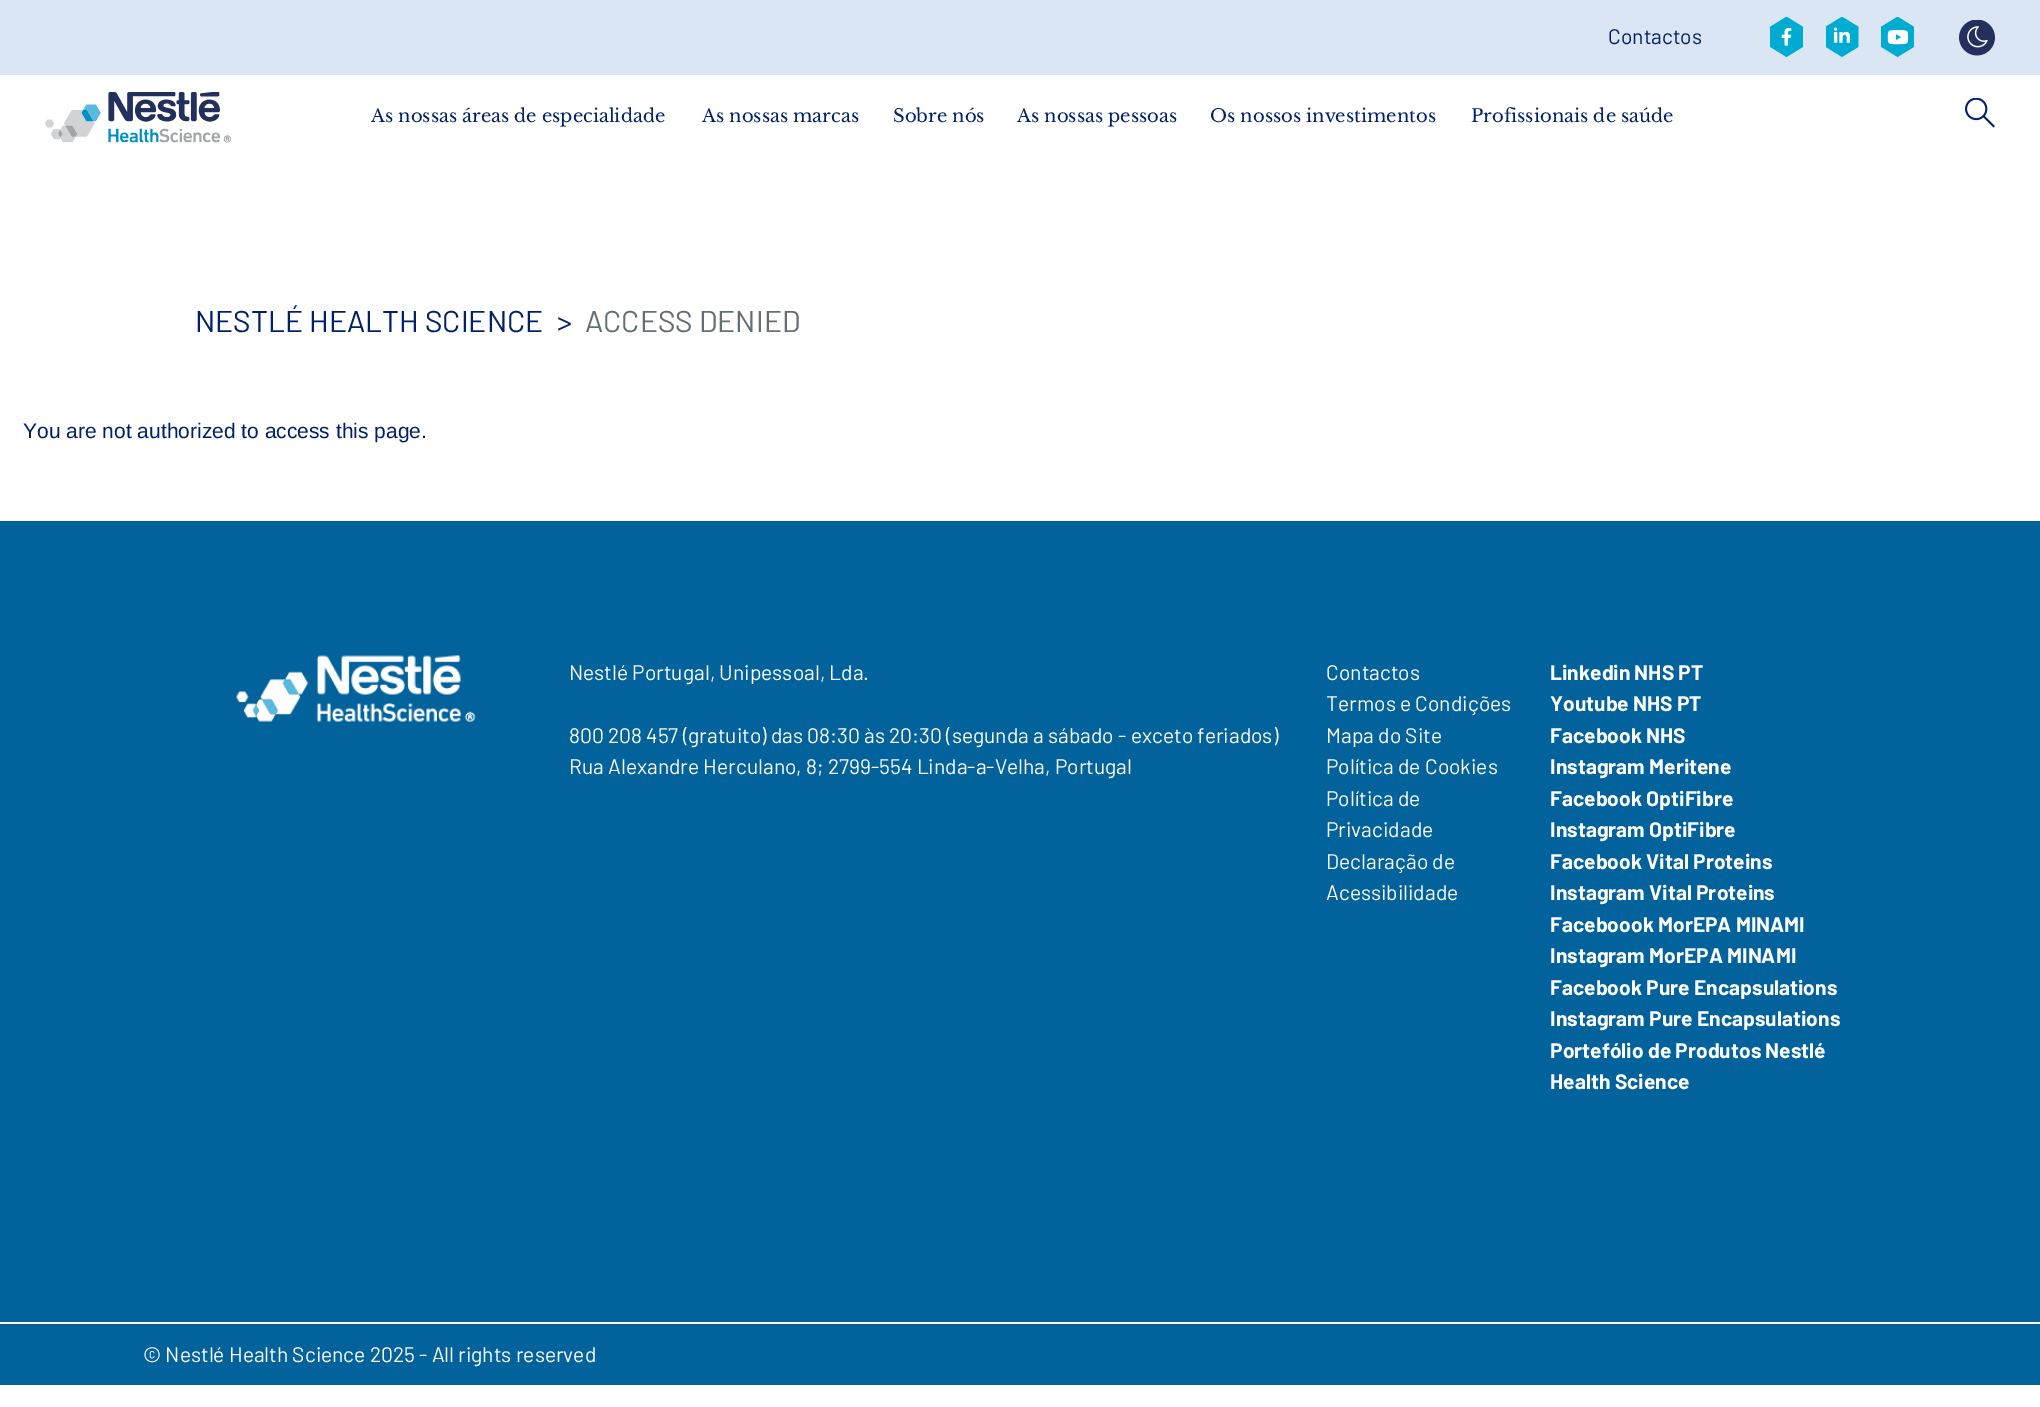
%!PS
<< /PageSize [2040 1407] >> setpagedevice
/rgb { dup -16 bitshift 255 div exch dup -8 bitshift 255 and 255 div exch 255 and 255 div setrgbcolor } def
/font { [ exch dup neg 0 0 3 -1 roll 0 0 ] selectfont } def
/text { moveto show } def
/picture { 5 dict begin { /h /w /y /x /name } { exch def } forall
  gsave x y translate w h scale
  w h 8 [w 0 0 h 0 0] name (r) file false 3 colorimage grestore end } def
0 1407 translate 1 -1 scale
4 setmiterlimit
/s1 { /Barlow-Regular 21 font 16#002169 rgb } def
/s2 { /LibreBaskerville-Regular 18 font 16#002169 rgb } def
/s3 { /Barlow-Regular 30 font 16#002169 rgb } def
/s4 { /Barlow-Regular 30 font 16#636F77 rgb } def
/s5 { /LiberationSans-Regular 21 font 16#002169 rgb } def
/s6 { /Barlow-Regular 21 font 16#FFFFFF rgb } def
/s7 { /Barlow-Bold 21 font 16#FFFFFF rgb } def
16#FFFFFF rgb
0 0 2040 1407 rectfill
16#DAE6F4 rgb
0 0 2040 75 rectfill
s1
(Contactos) 1608 44 text
(pic1.raw) 1770 17 33 41 picture
(pic2.raw) 1826 17 33 40 picture
(pic3.raw) 1881 17 33 41 picture
(pic4.raw) 1959 20 36 36 picture
(pic5.raw) 45 92 186 51 picture
s2
(As nossas áreas de especialidade) 371 122 text
(As nossas marcas) 702 122 text
(Sobre nós) 893 122 text
(As nossas pessoas) 1017 122 text
(Os nossos investimentos) 1210 122 text
(Profissionais de saúde) 1471 122 text
(pic6.raw) 1965 98 30 30 picture
s3
(NESTLÉ HEALTH SCIENCE) 195 332 text
(>) 557 332 text
s4
(ACCESS DENIED) 585 332 text
s5
(You are not authorized to access this page.) 23 438 text
16#02629B rgb
0 521 2040 864 rectfill
(pic7.raw) 235 655 241 67 picture
s6
(Nestlé Portugal, Unipessoal, Lda.) 569 680 text
(800 208 457 \(gratuito\) das 08:30 às 20:30 \(segunda a sábado - exceto feriados\)) 569 743 text
(Rua Alexandre Herculano, 8; 2799-554 Linda-a-Velha, Portugal) 569 774 text
(Contactos) 1326 680 text
(Termos e Condições) 1326 711 text
(Mapa do Site) 1326 743 text
(Política de Cookies) 1326 774 text
(Política de) 1326 806 text
(Privacidade) 1326 837 text
(Declaração de) 1326 869 text
(Acessibilidade) 1326 900 text
s7
(Linkedin NHS PT) 1550 680 text
(Youtube NHS PT) 1550 711 text
(Facebook NHS) 1550 743 text
(Instagram Meritene) 1550 774 text
(Facebook OptiFibre) 1550 806 text
(Instagram OptiFibre) 1550 837 text
(Facebook Vital Proteins) 1550 869 text
(Instagram Vital Proteins) 1550 900 text
(Faceboook MorEPA MINAMI) 1550 932 text
(Instagram MorEPA MINAMI) 1550 963 text
(Facebook Pure Encapsulations) 1550 995 text
(Instagram Pure Encapsulations) 1550 1026 text
(Portefólio de Produtos Nestlé) 1550 1058 text
(Health Science) 1550 1089 text
0 1322 2040 2 rectfill
s6
(© Nestlé Health Science 2025 - All rights reserved) 143 1362 text
showpage
